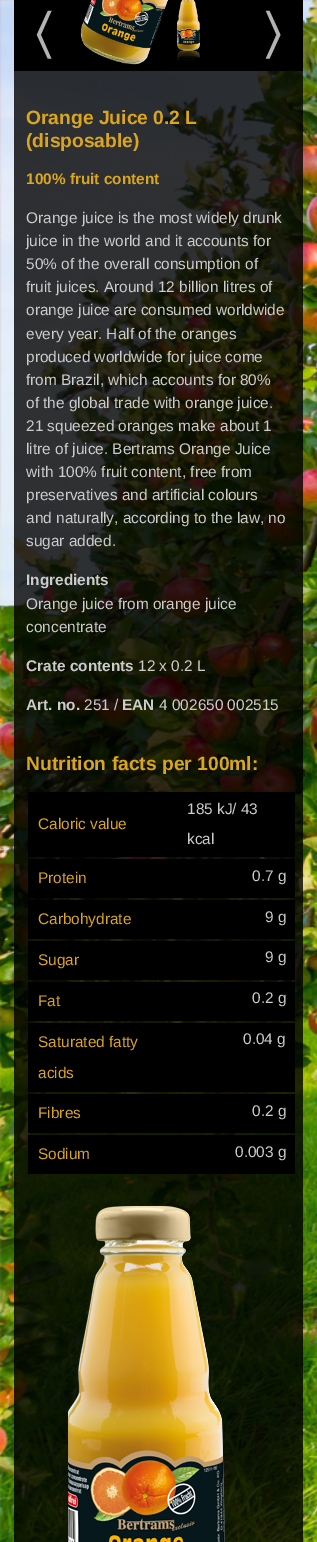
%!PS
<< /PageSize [317 1542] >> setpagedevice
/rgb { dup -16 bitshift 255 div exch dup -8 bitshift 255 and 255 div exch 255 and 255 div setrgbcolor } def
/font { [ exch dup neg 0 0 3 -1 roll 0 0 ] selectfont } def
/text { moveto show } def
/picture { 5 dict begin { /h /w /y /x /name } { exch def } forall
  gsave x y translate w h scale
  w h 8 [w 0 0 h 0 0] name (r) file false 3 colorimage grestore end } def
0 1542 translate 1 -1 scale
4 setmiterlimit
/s1 { /FreeSans-Regular 55 font 16#B3B3B3 rgb } def
/s2 { /LiberationSans-Bold 19.25 font 16#DAA520 rgb } def
/s3 { /LiberationSans-Bold 15.4 font 16#DAA520 rgb } def
/s4 { /LiberationSans-Regular 15.4 font 16#CCCCCC rgb } def
/s5 { /LiberationSans-Bold 15.4 font 16#CCCCCC rgb } def
/s6 { /LiberationSans-Regular 15.4 font 16#DAA520 rgb } def
16#FFFFFF rgb
0 0 317 1542 rectfill
(pic1.raw) 0 0 317 1542 picture
16#000000 rgb
14 0 289 71 rectfill
(pic2.raw) 80 0 120 65 picture
s1
(〈) 35 51 text
(〉) 264 51 text
s2
(Orange Juice 0.2 L) 26 124 text
(\(disposable\)) 26 147 text
s3
(100% fruit content) 26 184 text
s4
(Orange juice is the most widely drunk) 26 223 text
(juice in the world and it accounts for) 26 246 text
(50% of the overall consumption of) 26 269 text
(fruit juices. Around 12 billion litres of) 26 292 text
(orange juice are consumed worldwide) 26 315 text
(every year. Half of the oranges) 26 339 text
(produced worldwide for juice come) 26 362 text
(from Brazil, which accounts for 80%) 26 385 text
(of the global trade with orange juice.) 26 408 text
(21 squeezed oranges make about 1) 26 431 text
(litre of juice. Bertrams Orange Juice) 26 454 text
(with 100% fruit content, free from) 26 477 text
(preservatives and artificial colours) 26 500 text
(and naturally, according to the law, no) 26 523 text
(sugar added.) 26 546 text
s5
(Ingredients) 26 585 text
s4
(Orange juice from orange juice) 26 609 text
(concentrate) 26 632 text
s5
(Crate contents) 26 671 text
s4
(12 x 0.2 L) 138 671 text
s5
(Art. no.) 26 710 text
s4
(251 /) 84 710 text
s5
(EAN) 122 710 text
s4
(4 002650 002515) 159 710 text
s2
(Nutrition facts per 100ml:) 26 770 text
16#000000 rgb
28 792 267 65 rectfill
s6
(Caloric value) 38 829 text
s4
(185 kJ/ 43) 187 814 text
(kcal) 187 844 text
16#000000 rgb
28 859 267 39 rectfill
s6
(Protein) 38 883 text
s4
(0.7 g) 252 881 text
16#000000 rgb
28 900 267 39 rectfill
s6
(Carbohydrate) 38 924 text
s4
(9 g) 265 922 text
16#000000 rgb
28 941 267 39 rectfill
s6
(Sugar) 38 965 text
s4
(9 g) 265 962 text
16#000000 rgb
28 982 267 39 rectfill
s6
(Fat) 38 1006 text
s4
(0.2 g) 252 1003 text
16#000000 rgb
28 1023 267 69 rectfill
s6
(Saturated fatty) 38 1047 text
(acids) 38 1078 text
s4
(0.04 g) 243 1044 text
16#000000 rgb
28 1094 267 39 rectfill
s6
(Fibres) 38 1118 text
s4
(0.2 g) 252 1116 text
16#000000 rgb
28 1135 267 39 rectfill
s6
(Sodium) 38 1159 text
s4
(0.003 g) 235 1157 text
(pic3.raw) 68 1206 157 336 picture
showpage
